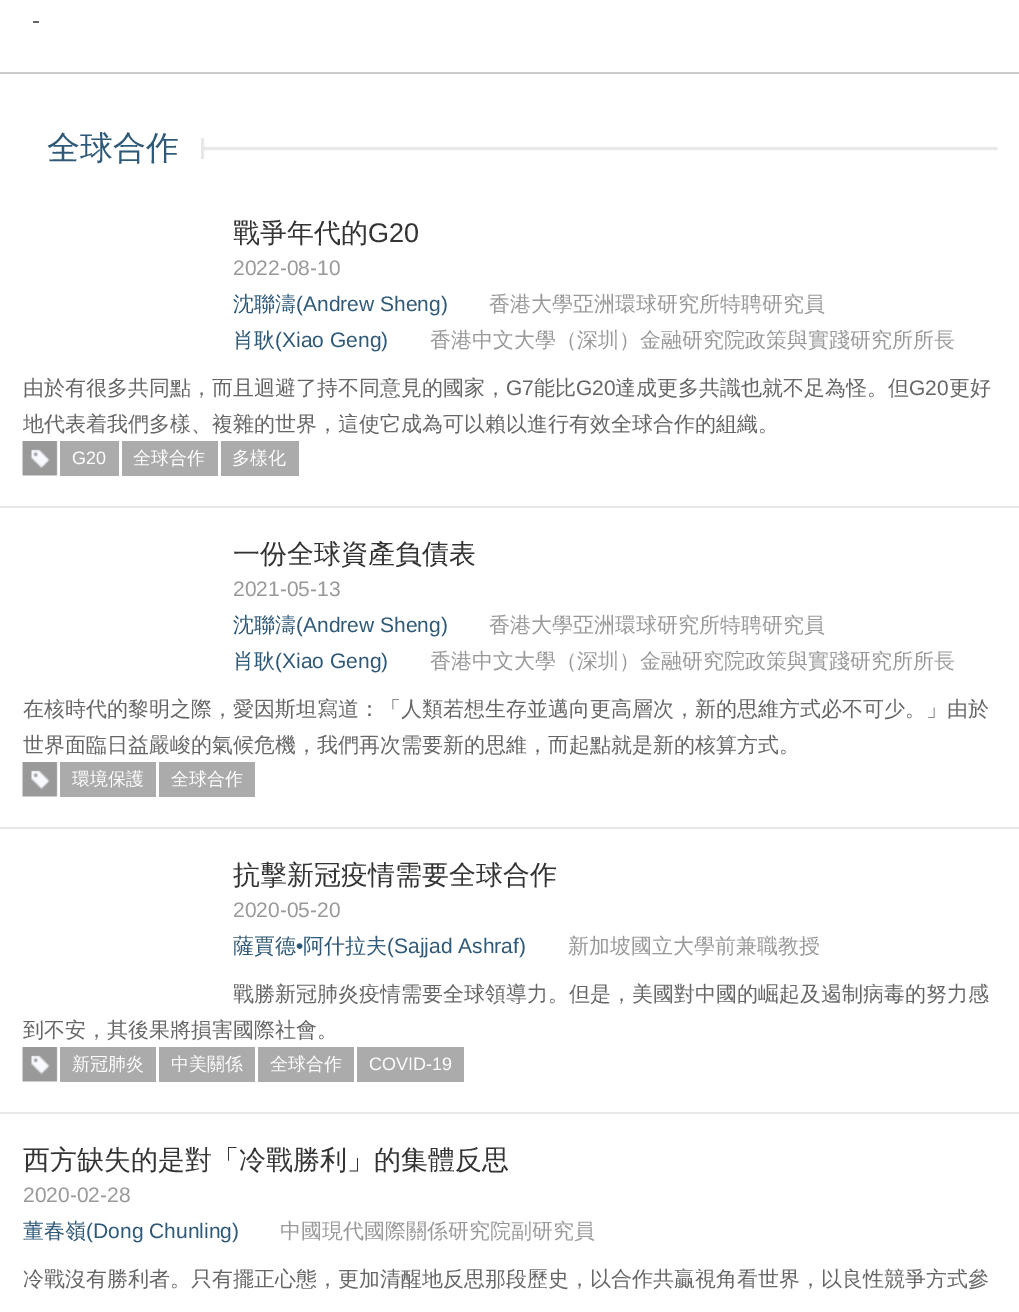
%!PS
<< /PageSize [1019 1312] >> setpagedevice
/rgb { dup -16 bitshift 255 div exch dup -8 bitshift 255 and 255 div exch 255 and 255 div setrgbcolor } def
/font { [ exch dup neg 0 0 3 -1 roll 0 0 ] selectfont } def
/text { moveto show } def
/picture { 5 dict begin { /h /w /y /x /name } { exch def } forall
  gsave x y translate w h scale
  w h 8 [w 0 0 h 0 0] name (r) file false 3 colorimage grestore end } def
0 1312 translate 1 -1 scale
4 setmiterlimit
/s1 { /WenQuanYiZenHei-Medium 33 font 16#2F5978 rgb } def
/s2 { /WenQuanYiZenHei-Medium 27 font 16#333333 rgb } def
/s3 { /LiberationSans-Regular 27 font 16#333333 rgb } def
/s4 { /LiberationSans-Regular 21 font 16#999999 rgb } def
/s5 { /WenQuanYiZenHei-Medium 21 font 16#2F5978 rgb } def
/s6 { /LiberationSans-Regular 21 font 16#2F5978 rgb } def
/s7 { /WenQuanYiZenHei-Medium 21 font 16#999999 rgb } def
/s8 { /WenQuanYiZenHei-Medium 21 font 16#666666 rgb } def
/s9 { /LiberationSans-Regular 21 font 16#666666 rgb } def
/s10 { /LiberationSans-Regular 18 font 16#FFFFFF rgb } def
/s11 { /WenQuanYiZenHei-Medium 18 font 16#FFFFFF rgb } def
16#FFFFFF rgb
0 0 1019 1312 rectfill
16#CCCCCC rgb
0 72 1019 2 rectfill
16#666666 rgb
33 21 6 2 rectfill
s1
(全球合作) 47 159 text
(pic1.raw) 201 138 797 21 picture
16#E7E7E7 rgb
0 506 1019 2 rectfill
s2
(戰爭年代的) 233 242 text
s3
(G20) 368 242 text
s4
(2022-08-10) 233 275 text
s5
(沈聯濤) 233 311 text
s6
(\(Andrew Sheng\)) 296 311 text
s7
(香港大學亞洲環球研究所特聘研究員) 489 311 text
s5
(肖耿) 233 347 text
s6
(\(Xiao Geng\)) 275 347 text
s7
(香港中文大學（深圳）金融研究院政策與實踐研究所所長) 430 347 text
s8
(由於有很多共同點，而且迴避了持不同意見的國家，) 23 395 text
s9
(G7) 506 395 text
s8
(能比) 534 395 text
s9
(G20) 576 395 text
s8
(達成更多共識也就不足為怪。但) 615 395 text
s9
(G20) 909 395 text
s8
(更好) 949 395 text
(地代表着我們多樣、複雜的世界，這使它成為可以賴以進行有效全球合作的組織。) 23 431 text
(pic2.raw) 22 441 36 35 picture
16#ABABAB rgb
60 441 59 35 rectfill
s10
(G20) 72 464 text
16#ABABAB rgb
122 441 96 35 rectfill
s11
(全球合作) 133 464 text
16#ABABAB rgb
221 441 78 35 rectfill
s11
(多樣化) 232 464 text
16#E7E7E7 rgb
0 827 1019 2 rectfill
s2
(一份全球資產負債表) 233 563 text
s4
(2021-05-13) 233 596 text
s5
(沈聯濤) 233 632 text
s6
(\(Andrew Sheng\)) 296 632 text
s7
(香港大學亞洲環球研究所特聘研究員) 489 632 text
s5
(肖耿) 233 668 text
s6
(\(Xiao Geng\)) 275 668 text
s7
(香港中文大學（深圳）金融研究院政策與實踐研究所所長) 430 668 text
s8
(在核時代的黎明之際，愛因斯坦寫道：「人類若想生存並邁向更高層次，新的思維方式必不可少。」由於) 23 716 text
(世界面臨日益嚴峻的氣候危機，我們再次需要新的思維，而起點就是新的核算方式。) 23 752 text
(pic2.raw) 22 762 36 35 picture
16#ABABAB rgb
60 762 96 35 rectfill
s11
(環境保護) 72 785 text
16#ABABAB rgb
159 762 96 35 rectfill
s11
(全球合作) 171 785 text
16#E7E7E7 rgb
0 1112 1019 2 rectfill
s2
(抗擊新冠疫情需要全球合作) 233 884 text
s4
(2020-05-20) 233 917 text
s5
(薩賈德) 233 953 text
s6
(•) 296 953 text
s5
(阿什拉夫) 303 953 text
s6
(\(Sajjad Ashraf\)) 387 953 text
s7
(新加坡國立大學前兼職教授) 568 953 text
s8
(戰勝新冠肺炎疫情需要全球領導力。但是，美國對中國的崛起及遏制病毒的努力感) 233 1001 text
(到不安，其後果將損害國際社會。) 23 1037 text
(pic2.raw) 22 1047 36 35 picture
16#ABABAB rgb
60 1047 96 35 rectfill
s11
(新冠肺炎) 72 1070 text
16#ABABAB rgb
159 1047 96 35 rectfill
s11
(中美關係) 171 1070 text
16#ABABAB rgb
258 1047 96 35 rectfill
s11
(全球合作) 270 1070 text
16#ABABAB rgb
357 1047 107 35 rectfill
s10
(COVID-19) 369 1070 text
s2
(西方缺失的是對「冷戰勝利」的集體反思) 23 1169 text
s4
(2020-02-28) 23 1202 text
s5
(董春嶺) 23 1238 text
s6
(\(Dong Chunling\)) 86 1238 text
s7
(中國現代國際關係研究院副研究員) 280 1238 text
s8
(冷戰沒有勝利者。只有擺正心態，更加清醒地反思那段歷史，以合作共贏視角看世界，以良性競爭方式參) 23 1286 text
showpage
